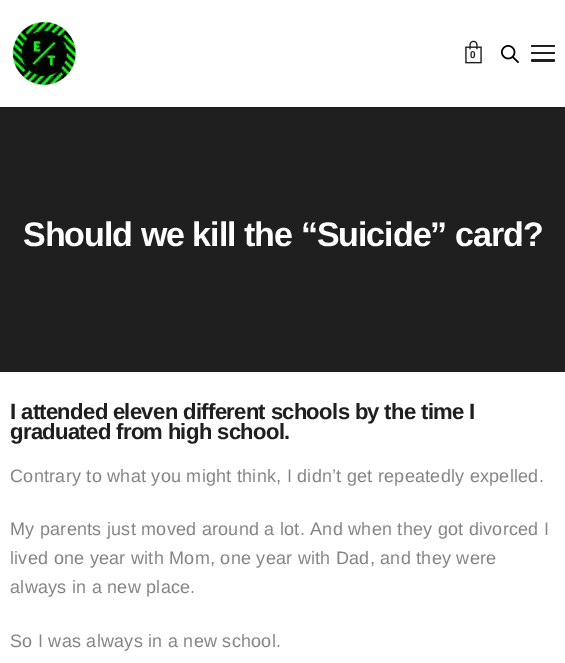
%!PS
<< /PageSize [565 663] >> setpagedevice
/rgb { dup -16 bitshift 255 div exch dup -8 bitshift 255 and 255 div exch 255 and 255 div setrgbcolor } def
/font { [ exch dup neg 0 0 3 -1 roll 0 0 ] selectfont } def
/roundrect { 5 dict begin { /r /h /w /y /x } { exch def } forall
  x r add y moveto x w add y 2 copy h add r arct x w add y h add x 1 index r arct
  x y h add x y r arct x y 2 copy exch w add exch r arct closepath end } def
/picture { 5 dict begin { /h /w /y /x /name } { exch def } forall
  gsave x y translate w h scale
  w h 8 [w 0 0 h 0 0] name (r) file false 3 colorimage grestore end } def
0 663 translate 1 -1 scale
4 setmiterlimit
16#FFFFFF rgb
0 0 565 663 rectfill
(pic1.raw) 12 21 64 64 picture
(pic2.raw) 465 40 17 24 picture
/LiberationSans-Bold 10 font
16#1F1F1F rgb
470 58 moveto 0.25 0 (0) ashow
(pic3.raw) 501 45 18 18 picture
531 45 24 2 1 roundrect fill
531 52 24 2 1 roundrect fill
531 59 24 3 1.5 roundrect fill
0 107 565 265 rectfill
/LiberationSans-Bold 34 font
16#FFFFFF rgb
23 246 moveto -1 0 (Should we kill the “Suicide” card?) ashow
/LiberationSans-Bold 22 font
16#1F1F1F rgb
10 419 moveto -0.65 0 (I attended eleven different schools by the time I) ashow
10 439 moveto -0.65 0 (graduated from high school.) ashow
/LiberationSans-Regular 18 font
16#848484 rgb
10 482 moveto 0.25 0 (Contrary to what you might think, I didn’t get repeatedly expelled.) ashow
10 535 moveto 0.25 0 (My parents just moved around a lot. And when they got divorced I) ashow
10 564 moveto 0.25 0 (lived one year with Mom, one year with Dad, and they were) ashow
10 593 moveto 0.25 0 (always in a new place.) ashow
10 647 moveto 0.25 0 (So I was always in a new school.) ashow
showpage
